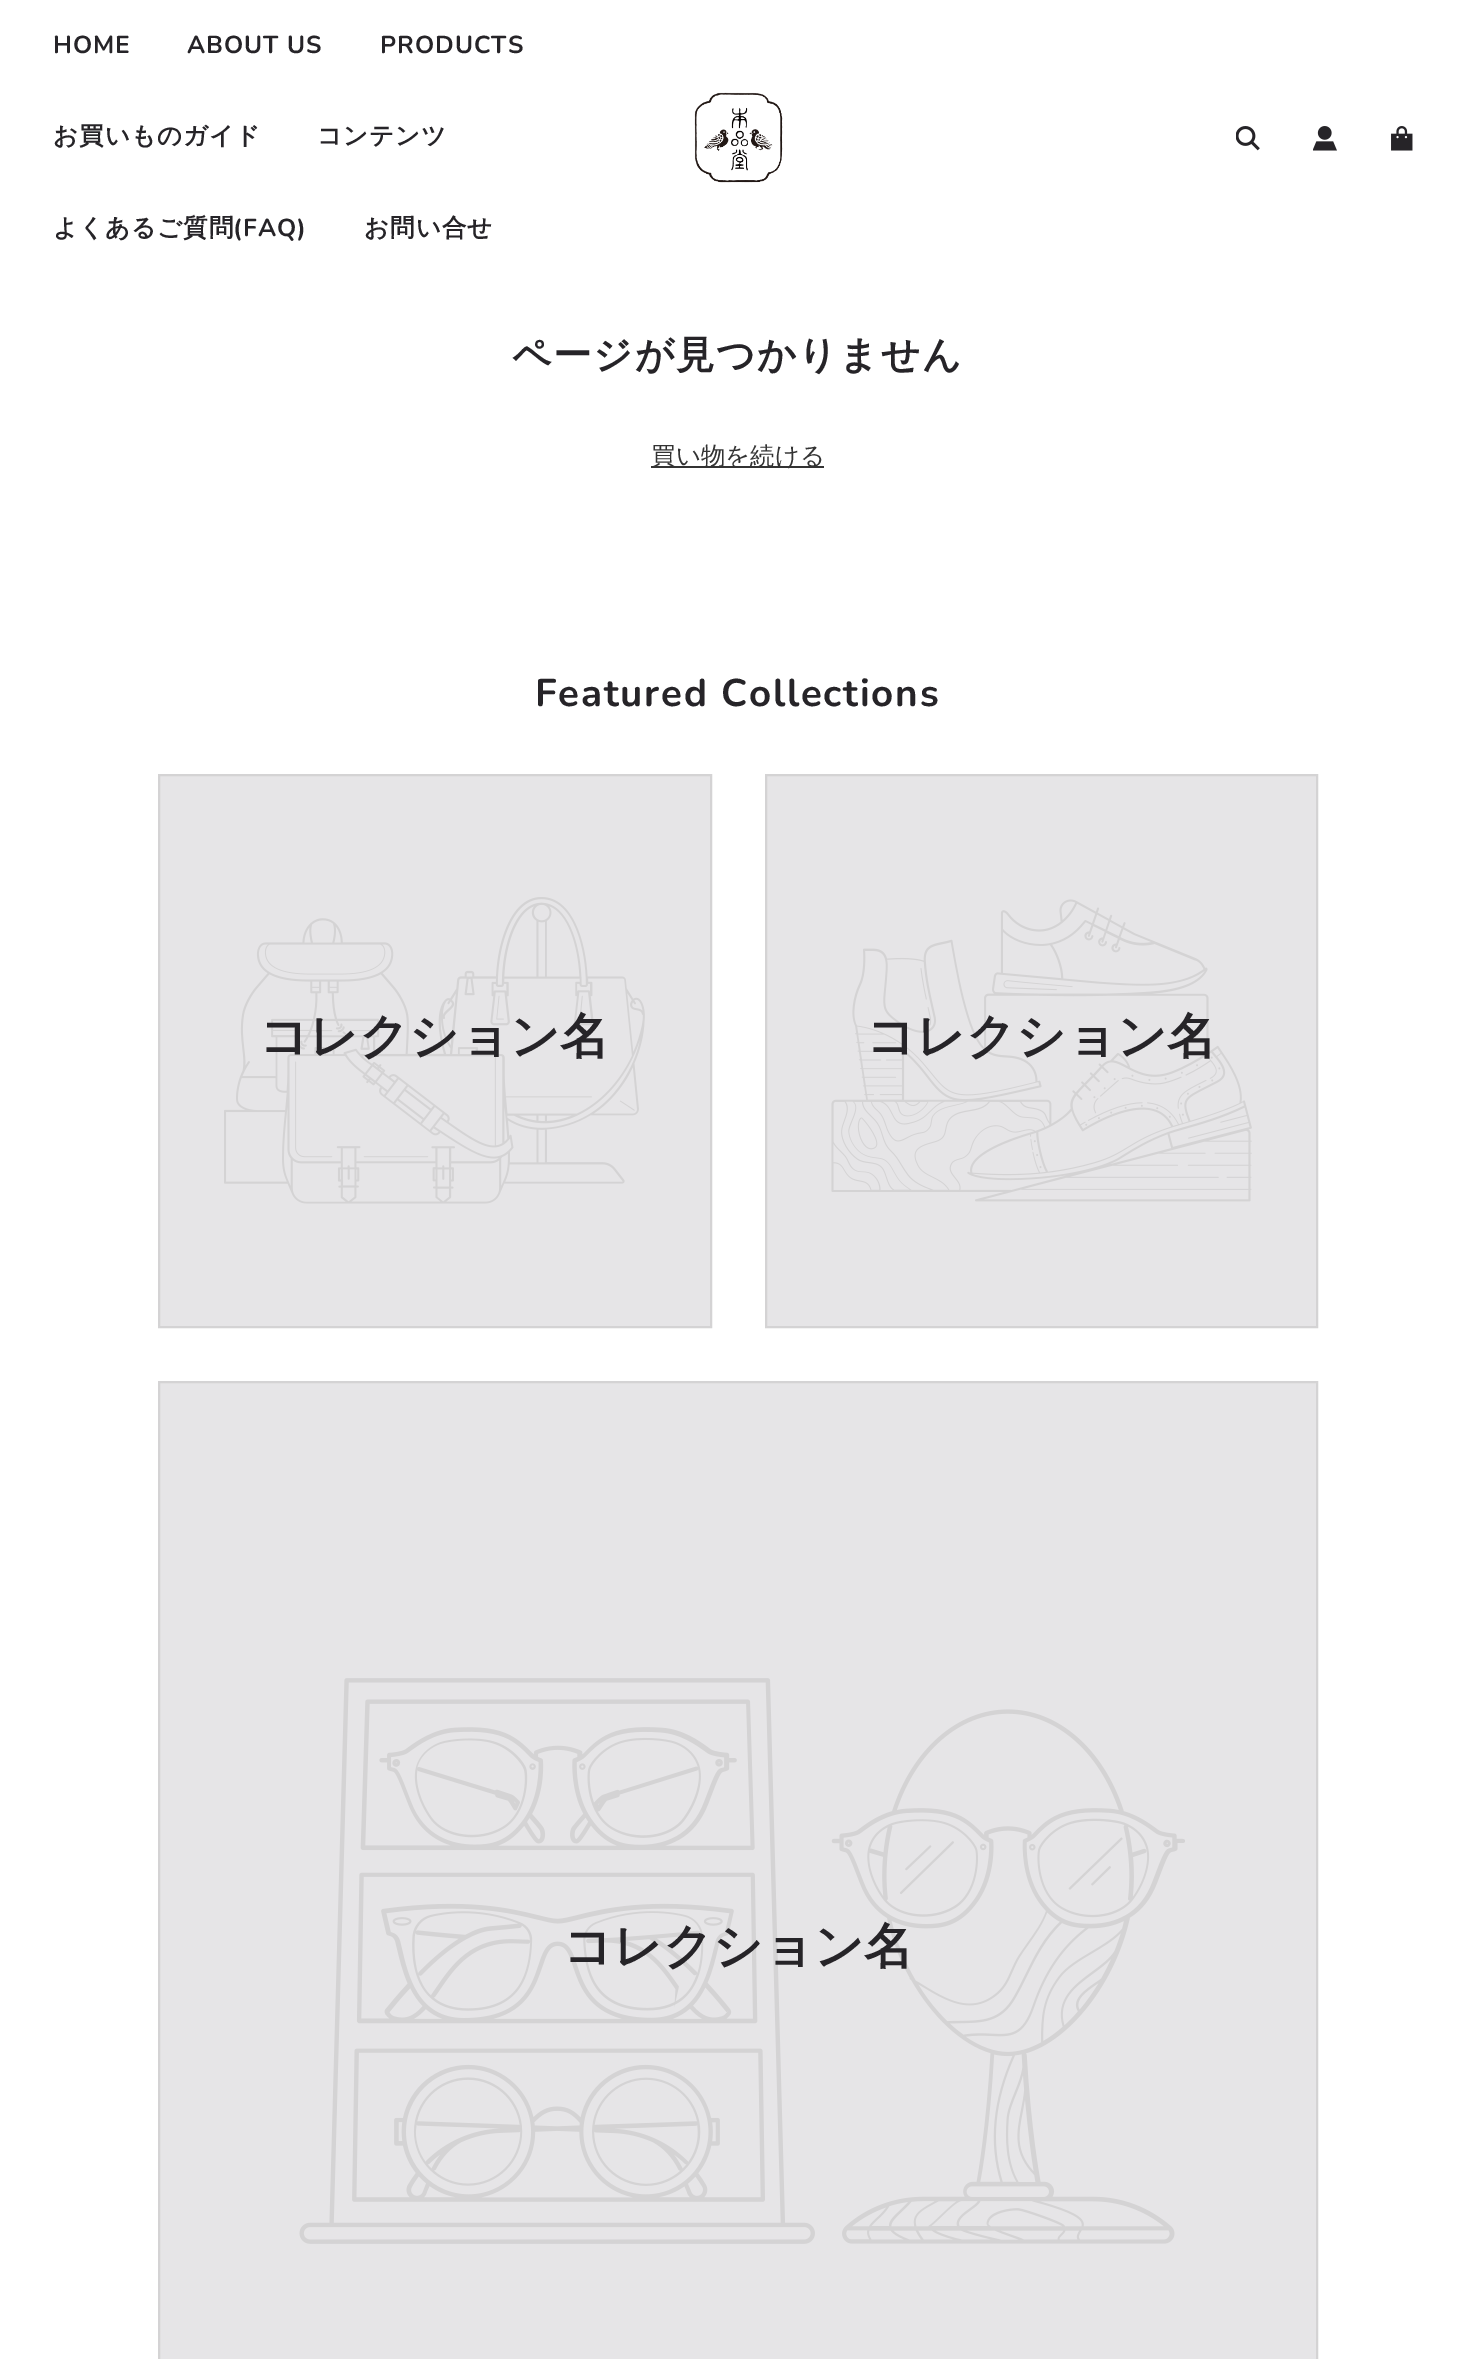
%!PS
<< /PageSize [1474 2359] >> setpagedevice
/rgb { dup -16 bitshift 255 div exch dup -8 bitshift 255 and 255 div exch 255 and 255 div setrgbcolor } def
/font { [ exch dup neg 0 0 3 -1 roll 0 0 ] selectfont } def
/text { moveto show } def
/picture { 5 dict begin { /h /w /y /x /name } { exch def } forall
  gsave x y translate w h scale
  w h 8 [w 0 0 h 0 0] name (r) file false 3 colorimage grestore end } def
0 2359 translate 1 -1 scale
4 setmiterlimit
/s1 { /WenQuanYiZenHei-Medium 24.5 font 16#333333 rgb } def
/s2 { /WenQuanYiZenHei-Bold 49 font 16#262428 rgb } def
16#FFFFFF rgb
0 0 1474 2359 rectfill
/Nunito-Bold 24.5 font
16#262428 rgb
53 53 moveto 1 0 (HOME) ashow
187 53 moveto 1 0 (ABOUT US) ashow
380 53 moveto 1 0 (PRODUCTS) ashow
/WenQuanYiZenHei-Bold 24.5 font
53 144 moveto 1 0 (お買いものガイド) ashow
317 144 moveto 1 0 (コンテンツ) ashow
53 236 moveto 1 0 (よくあるご質問) ashow
/Nunito-Bold 24.5 font
233 236 moveto 1 0 (\(FAQ\)) ashow
/WenQuanYiZenHei-Bold 24.5 font
364 236 moveto 1 0 (お問い合せ) ashow
(pic1.raw) 694 92 89 91 picture
(pic2.raw) 1236 126 24 25 picture
(pic3.raw) 1313 126 24 25 picture
(pic4.raw) 1391 126 22 25 picture
/WenQuanYiZenHei-Bold 38.5 font
512 368 moveto 1.75 0 (ページが見つかりません) ashow
16#333333 rgb
651 466 173 2 rectfill
s1
(買い物を続ける) 651 464 text
/Nunito-Bold 38.5 font
16#262428 rgb
535 706 moveto 1.75 0 (Featured Collections) ashow
16#E6E5E7 rgb
159 775 moveto 711 775 lineto 711 1327 lineto 159 1327 lineto closepath gsave fill grestore
16#D4D3D4 rgb
2 setlinewidth
stroke
(pic5.raw) 224 897 421 307 picture
s2
(コレクション名) 259 1053 text
16#E6E5E7 rgb
766 775 moveto 1317 775 lineto 1317 1327 lineto 766 1327 lineto closepath gsave fill grestore
16#D4D3D4 rgb
stroke
(pic6.raw) 831 899 421 303 picture
s2
(コレクション名) 866 1053 text
16#E6E5E7 rgb
159 1382 moveto 1317 1382 lineto 1317 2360 lineto 159 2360 lineto closepath gsave fill grestore
16#D4D3D4 rgb
stroke
(pic7.raw) 299 1678 886 566 picture
s2
(コレクション名) 563 1963 text
showpage
